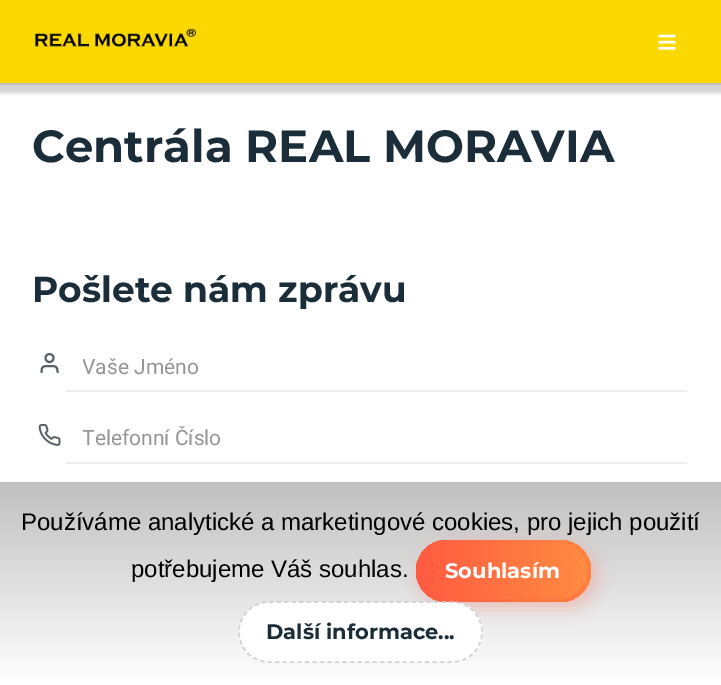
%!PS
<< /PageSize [721 685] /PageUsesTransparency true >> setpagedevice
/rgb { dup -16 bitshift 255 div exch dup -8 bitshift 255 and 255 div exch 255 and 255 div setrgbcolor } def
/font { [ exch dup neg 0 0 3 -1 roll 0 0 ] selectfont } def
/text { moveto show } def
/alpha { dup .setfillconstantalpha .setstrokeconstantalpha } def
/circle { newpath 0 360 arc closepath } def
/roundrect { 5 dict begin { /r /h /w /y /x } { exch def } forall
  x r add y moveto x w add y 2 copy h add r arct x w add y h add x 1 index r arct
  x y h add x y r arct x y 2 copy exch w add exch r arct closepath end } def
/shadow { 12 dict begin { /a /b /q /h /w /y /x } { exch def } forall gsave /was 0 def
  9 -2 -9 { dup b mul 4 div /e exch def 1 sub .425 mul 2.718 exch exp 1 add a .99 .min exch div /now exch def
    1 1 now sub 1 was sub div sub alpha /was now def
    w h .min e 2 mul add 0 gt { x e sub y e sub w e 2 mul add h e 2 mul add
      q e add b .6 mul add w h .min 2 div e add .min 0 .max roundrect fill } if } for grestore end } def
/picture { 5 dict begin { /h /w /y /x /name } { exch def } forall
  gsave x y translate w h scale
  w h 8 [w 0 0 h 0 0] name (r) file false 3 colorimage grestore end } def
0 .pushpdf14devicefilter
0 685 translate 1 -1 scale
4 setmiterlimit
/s1 { /Montserrat-Bold 45 font 16#1C2D3A rgb } def
/s2 { /Montserrat-Bold 36 font 16#1C2D3A rgb } def
/s3 { /Roboto-Regular 21 font 16#959595 rgb } def
/s4 { /LiberationSans-Regular 24 font 16#000000 rgb } def
/s5 { /Montserrat-Bold 21 font 16#FFFFFF rgb } def
/s6 { /Montserrat-Bold 21 font 16#1C2D3A rgb } def
16#FFFFFF rgb
0 0 721 685 rectfill
16#D3D3D3 rgb
-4 0 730 93 0 2 1 shadow
16#FAD800 rgb
0 0 721 83 rectfill
16#C0C0C0 rgb
0 83 721 2 rectfill
(pic1.raw) 34 28 162 19 picture
(pic2.raw) 658 34 18 16 picture
s1
(Centrála REAL MORAVIA) 32 162 text
s2
(Pošlete nám zprávu) 32 302 text
16#586167 rgb
2 setlinewidth
1 setlinecap
1 setlinejoin
57.5 372 moveto 57.5 365.5 55 366 49.5 366 curveto 44 366 41.5 365.5 41.5 372 curveto stroke
0 setlinecap
0 setlinejoin
49.5 358 4 circle stroke
16#EEEEEE rgb
66 390 621 2 rectfill
gsave
83 354 592 24 rectclip
s3
(Vaše Jméno) 82 374 text
grestore
(pic3.raw) 38 424 23 22 picture
66 462 621 2 rectfill
gsave
83 426 592 24 rectclip
s3
(Telefonní Číslo) 82 445 text
grestore
gsave 0 482 moveto 721 482 lineto 721 678 lineto 0 678 lineto closepath clip newpath
<< /ShadingType 2 /ColorSpace /DeviceRGB /Coords [361 482 361 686] /Extend [true true] /Function << /FunctionType 2 /Domain [0 1] /C0 [0.753 0.753 0.753] /C1 [1 1 1] /N 1 >> >> shfill grestore
s4
(Používáme analytické a marketingové cookies, pro jejich použití) 21 530 text
(potřebujeme Váš souhlas.) 131 577 text
gsave
416 540 175 62 31 roundrect clip newpath
gsave 416 558 moveto 419 558 lineto 419 584 lineto 416 584 lineto closepath clip newpath
<< /ShadingType 2 /ColorSpace /DeviceRGB /Coords [80 571 419 571] /Extend [true true] /Function << /FunctionType 3 /Domain [0 1] /Functions [<< /FunctionType 2 /Domain [0 1] /C0 [1 0.361 0.255] /C1 [1 0.549 0.255] /N 1 >> << /FunctionType 2 /Domain [0 1] /C0 [1 0.549 0.255] /C1 [1 0.361 0.255] /N 1 >>] /Bounds [0.51] /Encode [0 1 0 1] >> >> shfill grestore
gsave 419 540 moveto 560 540 lineto 577 540 591 554 591 571 curveto 591 588 577 602 560 602 curveto 419 602 lineto closepath clip newpath
<< /ShadingType 2 /ColorSpace /DeviceRGB /Coords [419 571 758 571] /Extend [true true] /Function << /FunctionType 3 /Domain [0 1] /Functions [<< /FunctionType 2 /Domain [0 1] /C0 [1 0.361 0.255] /C1 [1 0.549 0.255] /N 1 >> << /FunctionType 2 /Domain [0 1] /C0 [1 0.549 0.255] /C1 [1 0.361 0.255] /N 1 >>] /Bounds [0.51] /Encode [0 1 0 1] >> >> shfill grestore
grestore
gsave
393 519 moveto 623 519 lineto 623 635 lineto 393 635 lineto closepath 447 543 moveto 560 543 lineto 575.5 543 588 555.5 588 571 curveto 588 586.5 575.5 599 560 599 curveto 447 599 lineto 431.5 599 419 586.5 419 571 curveto 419 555.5 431.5 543 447 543 curveto closepath eoclip newpath
16#FF5C41 rgb
423 549 170 56 28 9.5 0.35 shadow
grestore
s5
(Souhlasím) 445 578 text
239 602 244 61 30.5 roundrect fill
16#D2D2D2 rgb
1.5 setlinewidth
[4.5 3] 0 setdash
269 602 moveto 452 602 lineto 469 602 482 615.5 482 632 curveto 482 649 469 662 452 662 curveto 269 662 lineto 252.5 662 239 649 239 632 curveto 239 615.5 252.5 602 269 602 curveto closepath stroke
s6
(Další informace...) 266 639 text
.poppdf14devicefilter showpage
